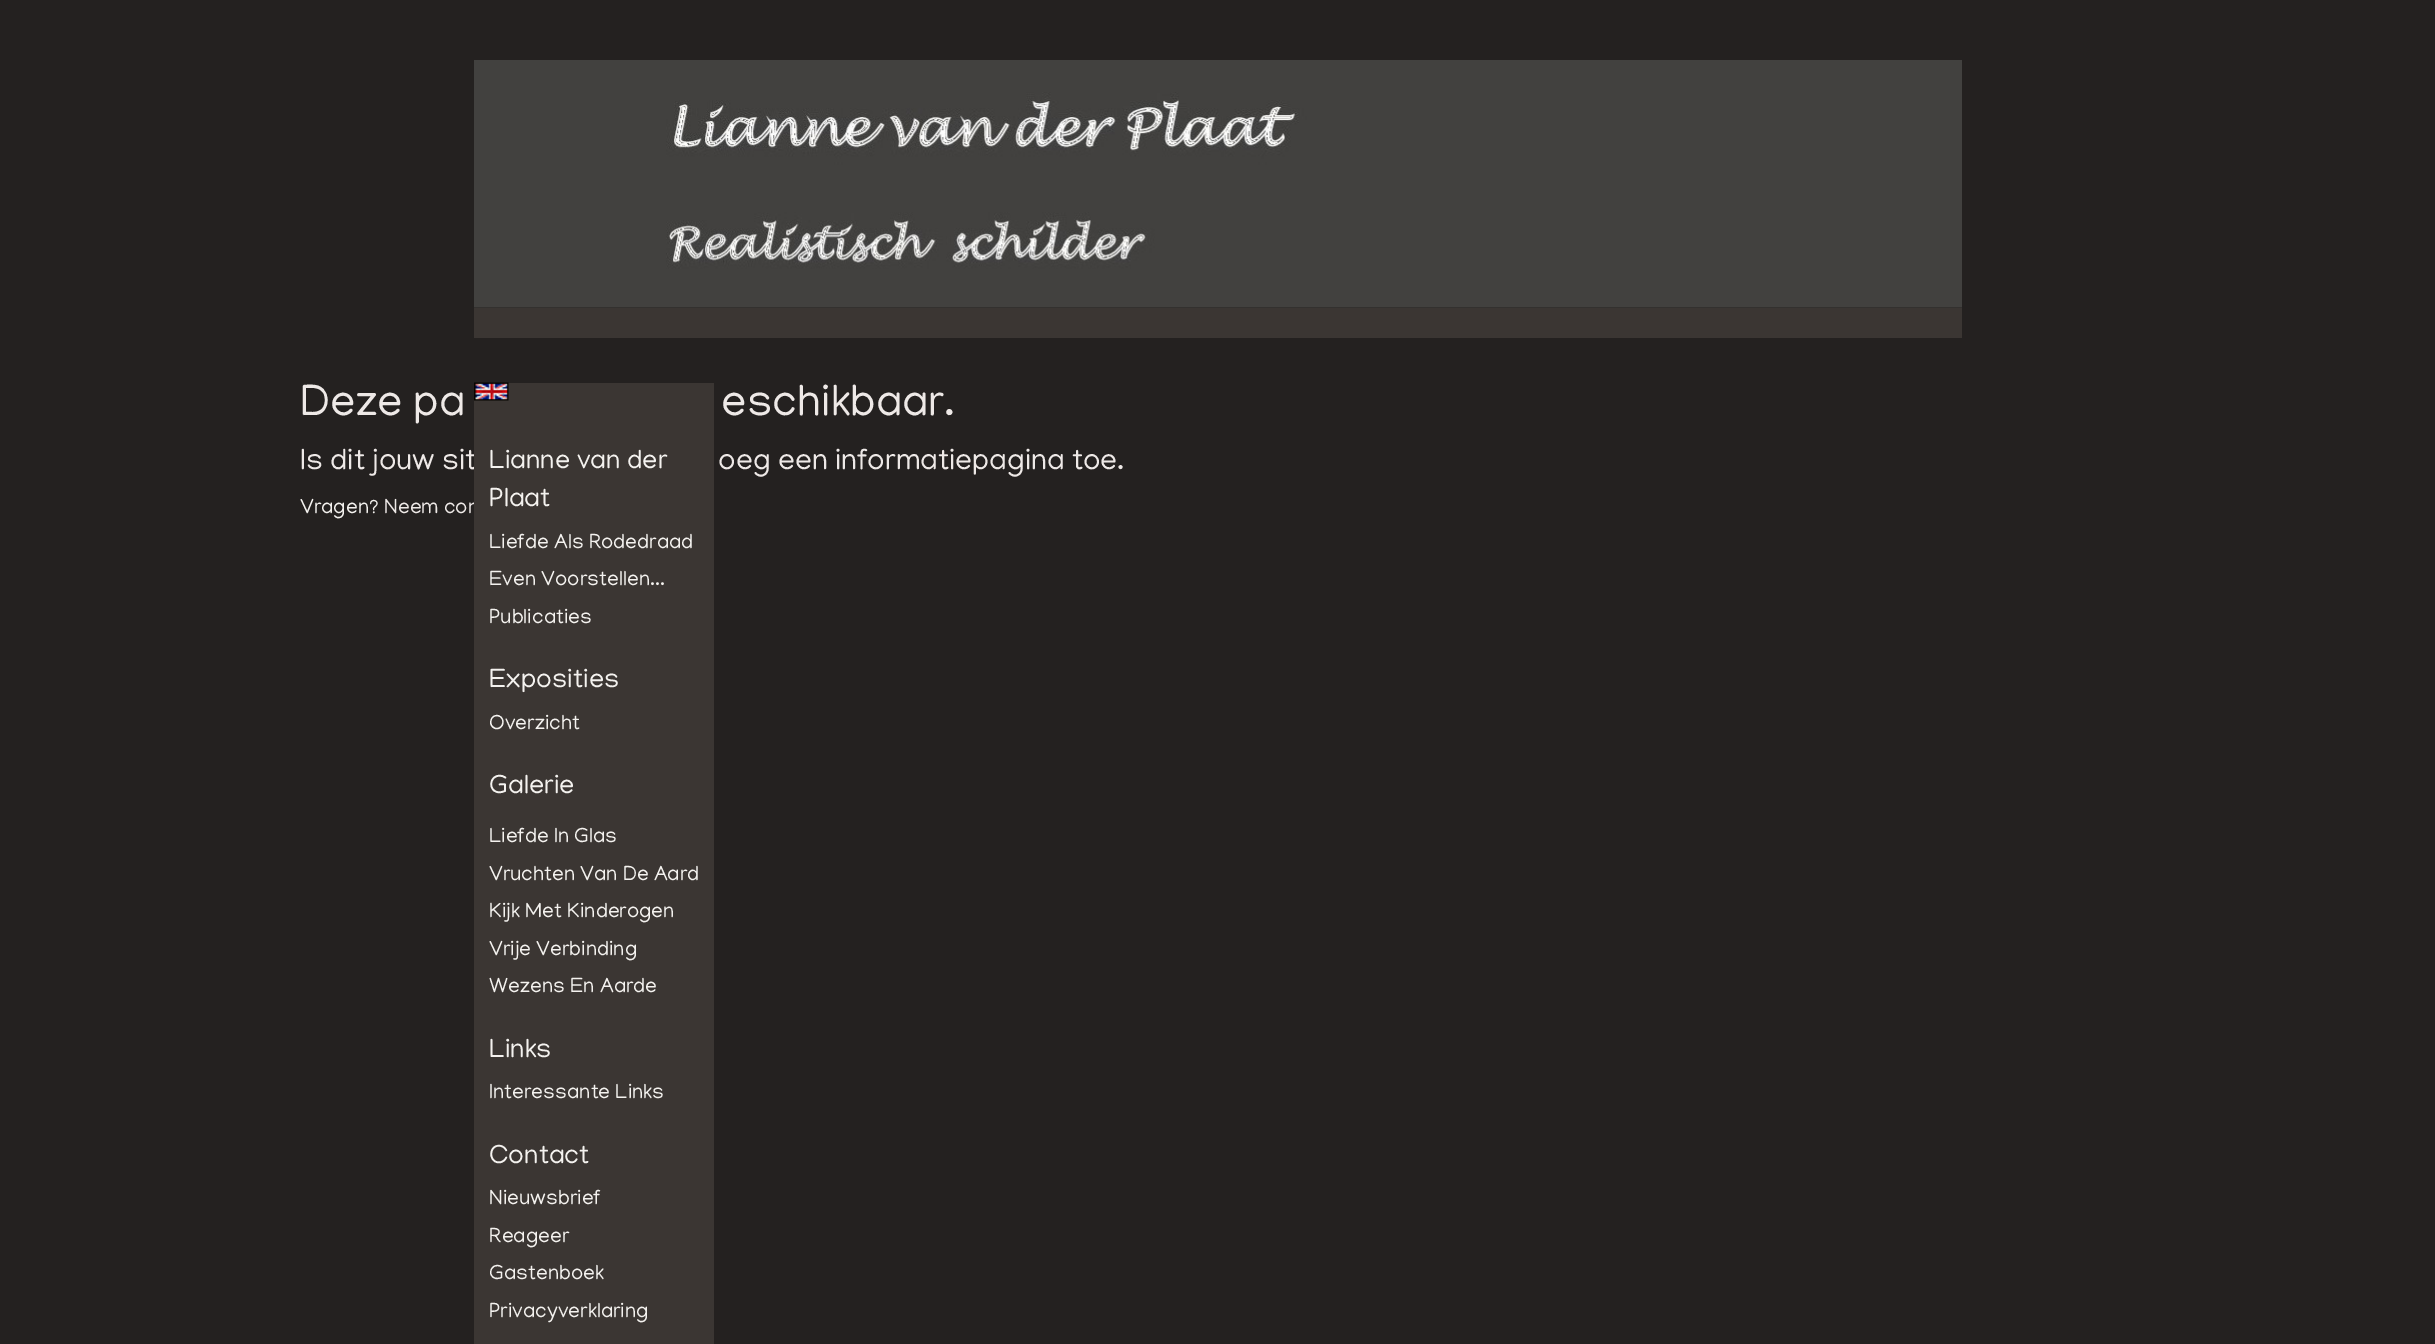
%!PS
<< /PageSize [2435 1344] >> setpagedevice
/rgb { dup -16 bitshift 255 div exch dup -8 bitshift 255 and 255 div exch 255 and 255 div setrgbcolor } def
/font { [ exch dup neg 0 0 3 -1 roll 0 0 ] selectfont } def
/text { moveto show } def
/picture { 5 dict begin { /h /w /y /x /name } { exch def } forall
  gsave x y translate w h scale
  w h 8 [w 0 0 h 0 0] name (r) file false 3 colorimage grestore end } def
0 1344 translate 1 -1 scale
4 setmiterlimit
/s1 { /Manjari-Regular 45 font 16#EEE9E7 rgb } def
/s2 { /Manjari-Regular 30 font 16#EEE9E7 rgb } def
/s3 { /Manjari-Regular 21 font 16#F4F2EF rgb } def
/s4 { /Manjari-Regular 21 font 16#EEE9E7 rgb } def
/s5 { /Manjari-Regular 27 font 16#F4F2EF rgb } def
16#242120 rgb
0 0 2435 1344 rectfill
(pic1.raw) 474 60 1488 248 picture
16#3B3633 rgb
474 308 1488 30 rectfill
s1
(Deze pa) 300 415 text
(eschikbaar.) 721 415 text
s2
(Is dit jouw sit) 300 469 text
(oeg een informatiepagina toe.) 718 469 text
s3
(Vragen?) 300 513 text
s4
(Neem con) 384 513 text
16#3B3633 rgb
474 383 240 961 rectfill
(pic2.raw) 474 382 35 19 picture
s5
(Lianne van der) 489 468 text
(Plaat) 489 506 text
s3
(Liefde Als Rodedraad) 489 548 text
(Even Voorstellen...) 489 585 text
(Publicaties) 489 623 text
s5
(Exposities) 489 687 text
s3
(Overzicht) 489 729 text
s5
(Galerie) 489 793 text
s3
(Liefde In Glas) 489 842 text
(Vruchten Van De Aard) 489 880 text
(Kijk Met Kinderogen) 489 917 text
(Vrije Verbinding) 489 955 text
(Wezens En Aarde) 489 992 text
s5
(Links) 489 1057 text
s3
(Interessante Links) 489 1098 text
s5
(Contact) 489 1163 text
s3
(Nieuwsbrief) 489 1204 text
(Reageer) 489 1242 text
(Gastenboek) 489 1279 text
(Privacyverklaring) 489 1317 text
showpage
